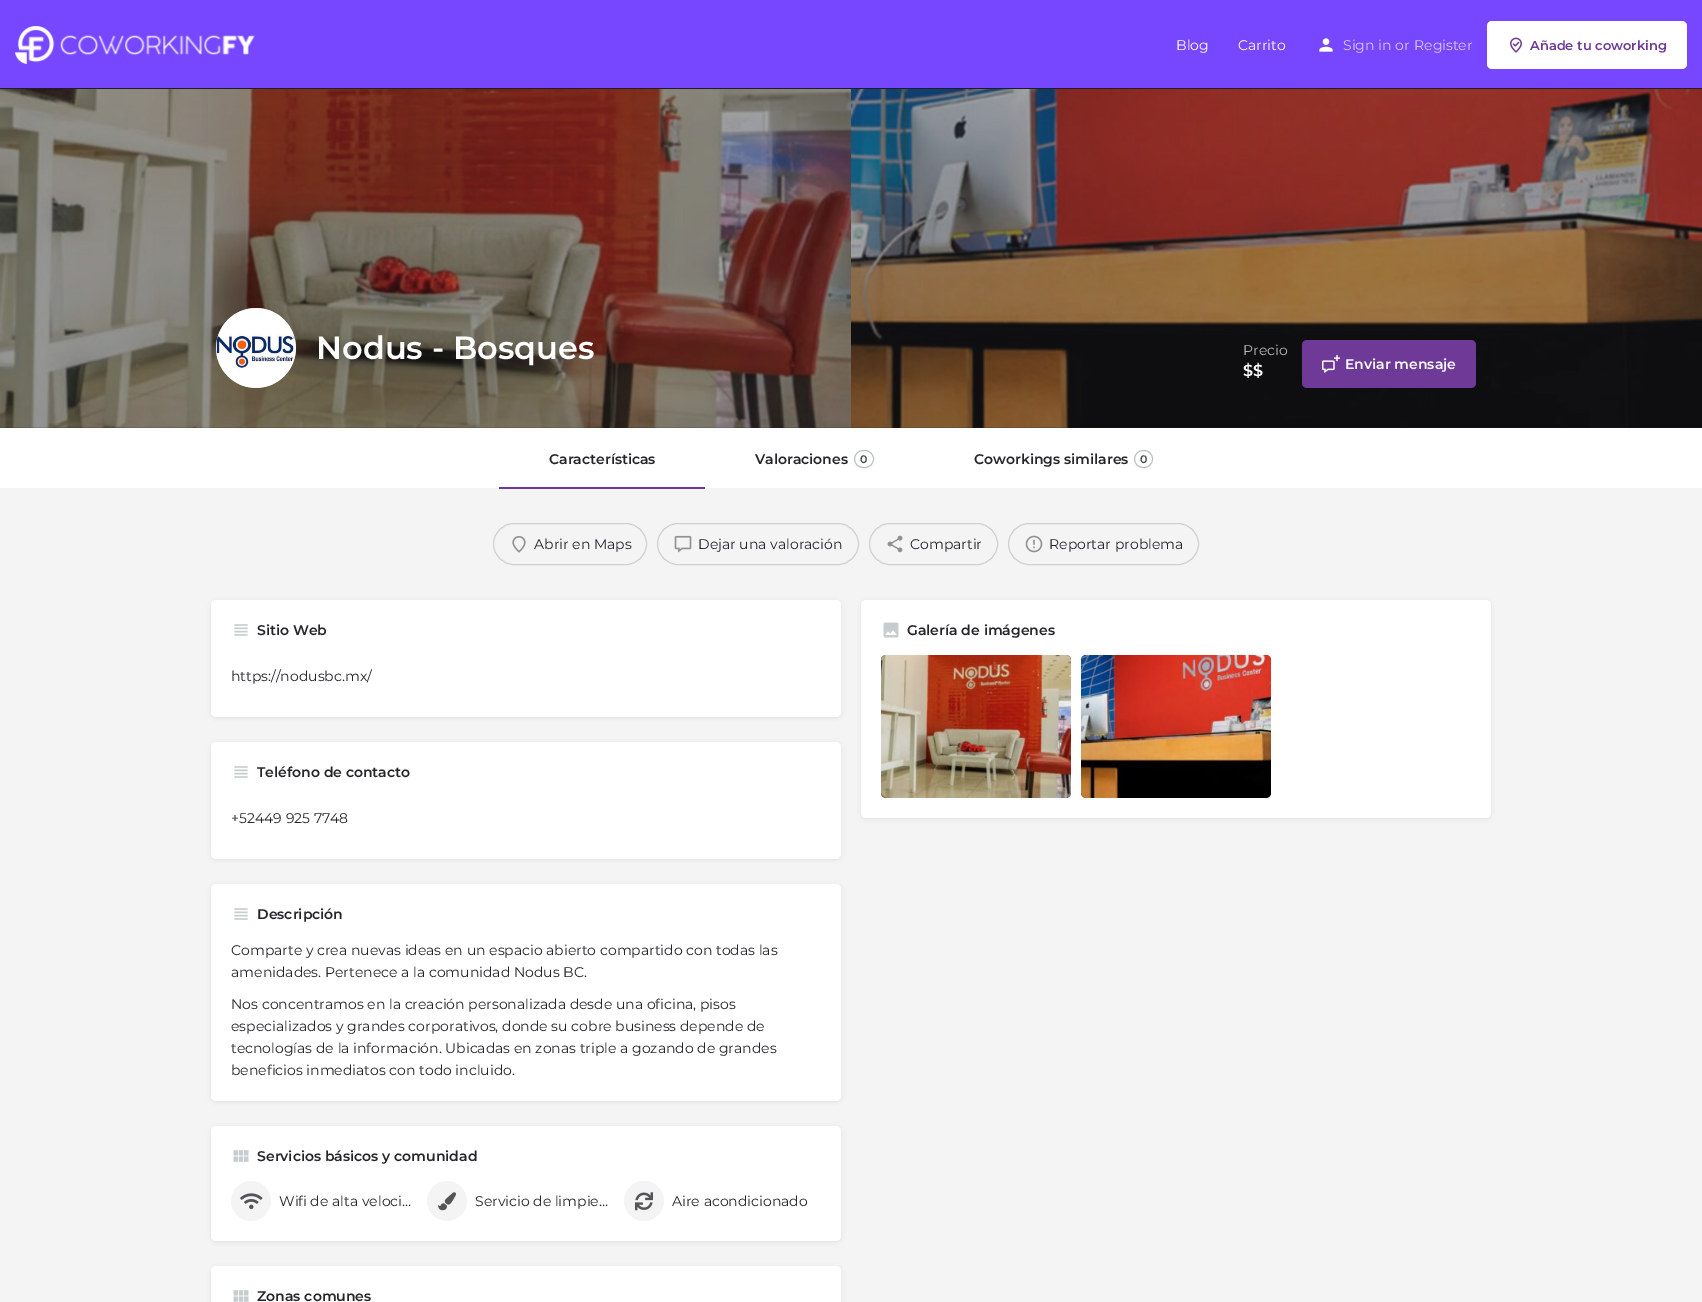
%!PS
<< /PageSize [1702 1302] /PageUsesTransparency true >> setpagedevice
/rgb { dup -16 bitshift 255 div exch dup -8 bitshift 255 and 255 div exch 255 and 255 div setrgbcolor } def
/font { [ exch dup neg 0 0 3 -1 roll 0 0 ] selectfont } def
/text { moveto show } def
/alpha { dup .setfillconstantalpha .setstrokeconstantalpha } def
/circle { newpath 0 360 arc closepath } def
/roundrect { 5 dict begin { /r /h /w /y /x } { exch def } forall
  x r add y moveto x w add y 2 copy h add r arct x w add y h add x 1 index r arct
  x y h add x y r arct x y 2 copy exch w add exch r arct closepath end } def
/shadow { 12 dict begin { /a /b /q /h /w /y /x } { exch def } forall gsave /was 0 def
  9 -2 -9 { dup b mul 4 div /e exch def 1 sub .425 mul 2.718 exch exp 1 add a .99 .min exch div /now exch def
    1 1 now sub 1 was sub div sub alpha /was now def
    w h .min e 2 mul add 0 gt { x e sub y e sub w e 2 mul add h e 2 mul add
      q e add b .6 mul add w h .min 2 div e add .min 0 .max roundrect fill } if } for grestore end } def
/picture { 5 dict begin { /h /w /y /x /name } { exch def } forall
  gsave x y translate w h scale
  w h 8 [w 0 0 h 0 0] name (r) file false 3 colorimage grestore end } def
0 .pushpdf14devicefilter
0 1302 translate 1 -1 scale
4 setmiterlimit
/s1 { /Montserrat-Regular 14 font 16#FFFFFF rgb } def
/s2 { /Montserrat-Regular 14 font 16#D6C8FF rgb } def
/s3 { /Montserrat-SemiBold 13 font 16#6F3998 rgb } def
/s4 { /Montserrat-SemiBold 32 font 16#FFFFFF rgb } def
/s5 { /Montserrat-Regular 14 font 16#B7B7B7 rgb } def
/s6 { /Montserrat-SemiBold 16 font 16#FFFFFF rgb } def
/s7 { /Montserrat-SemiBold 14 font 16#FFFFFF rgb } def
/s8 { /Montserrat-SemiBold 14 font 16#242429 rgb } def
/s9 { /Montserrat-SemiBold 11 font 16#484848 rgb } def
/s10 { /Montserrat-Regular 14 font 16#242429 rgb } def
16#F4F4F4 rgb
0 0 1702 1302 rectfill
16#7747FF rgb
0 0 1702 88 rectfill
16#1D1E28 rgb
0 88 1702 1 rectfill
(pic1.raw) 15 26 240 38 picture
s1
(Blog) 1176 50 text
(Carrito) 1238 50 text
(pic2.raw) 1319 38 14 14 picture
s2
(Sign in) 1343 50 text
(or) 1395 50 text
(Register) 1414 50 text
16#FFFFFF rgb
1487 21 200 48 5 roundrect fill
(pic3.raw) 1510 37 12 16 picture
s3
(Añade tu coworking) 1530 50 text
(pic4.raw) 0 89 851 339 picture
(pic5.raw) 851 89 851 339 picture
16#DDE5E6 rgb
256 348 40 circle fill
(pic6.raw) 216 308 80 80 picture
s4
(Nodus - Bosques) 316 359 text
s5
(Precio) 1243 355 text
s6
($$) 1243 376 text
16#6F3998 rgb
1302 340 174 48 5 roundrect fill
(pic7.raw) 1322 355 18 18 picture
s7
(Enviar mensaje) 1345 369 text
0 428 1702 60 rectfill
s8
(Características) 549 464 text
16#6F3998 rgb
499 487 206 2 rectfill
s8
(Valoraciones) 755 464 text
16#BAC1C1 rgb
854.5 450.5 19 17 8.5 roundrect stroke
s9
(0) 860 463 text
s8
(Coworkings similares) 974 464 text
16#BAC1C1 rgb
1134.5 450.5 18 17 8.5 roundrect stroke
s9
(0) 1140 463 text
16#CFCFCF rgb
493.5 523.5 153 41 20.5 roundrect stroke
(pic8.raw) 512 536 14 17 picture
s10
(Abrir en Maps) 534 549 text
16#CFCFCF rgb
657.5 523.5 201 41 20.5 roundrect stroke
(pic9.raw) 674 535 18 18 picture
s10
(Dejar una valoración) 698 549 text
16#CFCFCF rgb
869.5 523.5 128 41 20.5 roundrect stroke
(pic10.raw) 887 535 16 18 picture
s10
(Compartir) 910 549 text
16#CFCFCF rgb
1008.5 523.5 190 41 20.5 roundrect stroke
(pic11.raw) 1025 535 18 18 picture
s10
(Reportar problema) 1049 549 text
16#000000 rgb
211 601 630 117 5 2 0.07 shadow
16#FFFFFF rgb
211 600 630 117 5 roundrect fill
(pic12.raw) 234 624 14 12 picture
s8
(Sitio Web) 257 635 text
s10
(https://nodusbc.mx/) 231 681 text
16#000000 rgb
211 743 630 117 5 2 0.07 shadow
16#FFFFFF rgb
211 742 630 117 5 roundrect fill
(pic12.raw) 234 766 14 12 picture
s8
(Teléfono de contacto) 257 777 text
s10
(+52449 925 7748) 231 823 text
16#000000 rgb
211 885 630 217 5 2 0.07 shadow
16#FFFFFF rgb
211 884 630 217 5 roundrect fill
(pic12.raw) 234 908 14 12 picture
s8
(Descripción) 257 919 text
s10
(Comparte y crea nuevas ideas en un espacio abierto compartido con todas las) 231 955 text
(amenidades. Pertenece a la comunidad Nodus BC.) 231 977 text
(Nos concentramos en la creación personalizada desde una oficina, pisos) 231 1009 text
(especializados y grandes corporativos, donde su cobre business depende de) 231 1031 text
(tecnologías de la información. Ubicadas en zonas triple a gozando de grandes) 231 1053 text
(beneficios inmediatos con todo incluido.) 231 1075 text
16#000000 rgb
211 1127 630 115 5 2 0.07 shadow
16#FFFFFF rgb
211 1126 630 115 5 roundrect fill
(pic13.raw) 233 1150 16 12 picture
s8
(Servicios básicos y comunidad) 257 1161 text
16#F4F4F4 rgb
251 1201 20 circle fill
(pic14.raw) 240 1193 23 17 picture
s10
(Wifi de alta veloci…) 279 1206 text
16#F4F4F4 rgb
447 1201 20 circle fill
(pic15.raw) 438 1192 18 19 picture
s10
(Servicio de limpie…) 475 1206 text
16#F4F4F4 rgb
644 1201 20 circle fill
(pic16.raw) 635 1192 18 19 picture
s10
(Aire acondicionado) 672 1206 text
16#000000 rgb
211 1267 630 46 5 2 0.07 shadow
16#FFFFFF rgb
211 1266 630 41 5 roundrect fill
(pic13.raw) 233 1290 16 12 picture
s8
(Zonas comunes) 257 1301 text
16#000000 rgb
861 601 630 218 5 2 0.07 shadow
16#FFFFFF rgb
861 600 630 218 5 roundrect fill
(pic17.raw) 883 622 16 16 picture
s8
(Galería de imágenes) 907 635 text
(pic18.raw) 881 655 190 143 picture
(pic19.raw) 1081 655 190 143 picture
.poppdf14devicefilter showpage
